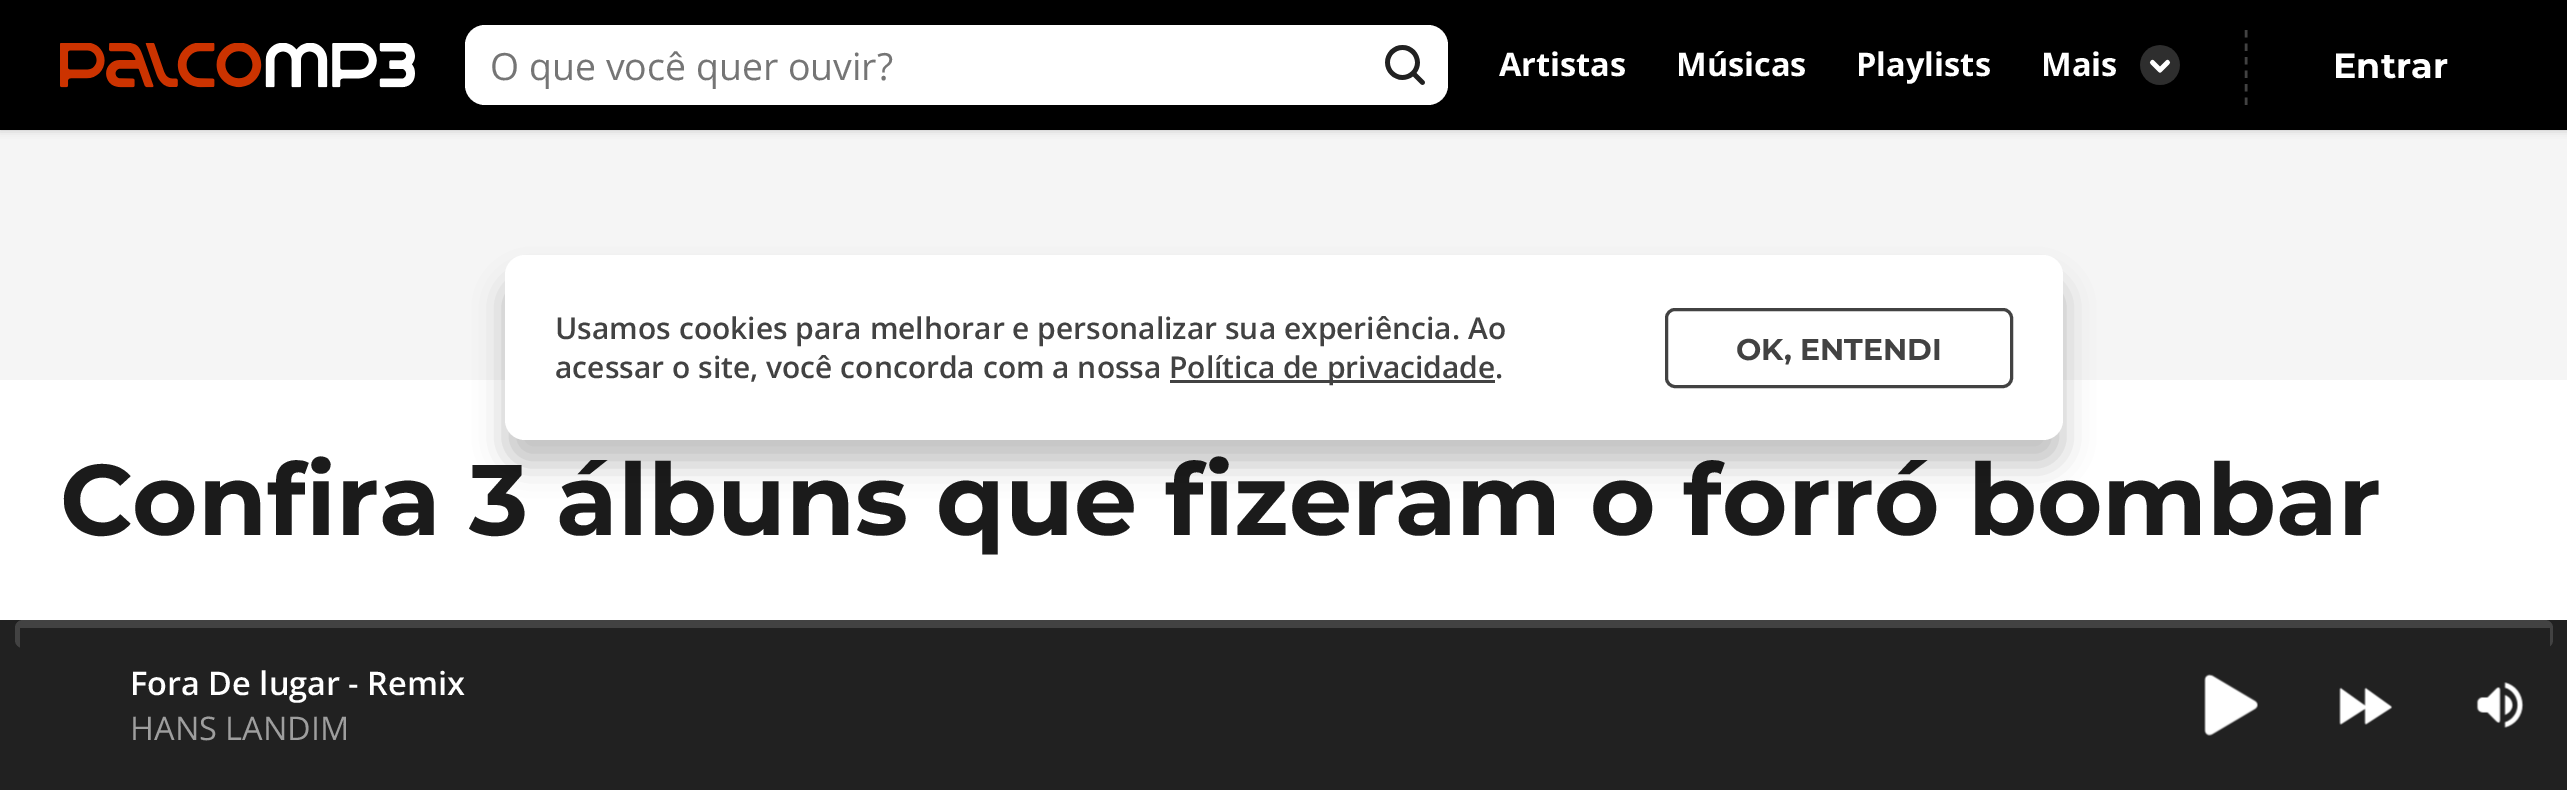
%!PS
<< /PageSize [2567 790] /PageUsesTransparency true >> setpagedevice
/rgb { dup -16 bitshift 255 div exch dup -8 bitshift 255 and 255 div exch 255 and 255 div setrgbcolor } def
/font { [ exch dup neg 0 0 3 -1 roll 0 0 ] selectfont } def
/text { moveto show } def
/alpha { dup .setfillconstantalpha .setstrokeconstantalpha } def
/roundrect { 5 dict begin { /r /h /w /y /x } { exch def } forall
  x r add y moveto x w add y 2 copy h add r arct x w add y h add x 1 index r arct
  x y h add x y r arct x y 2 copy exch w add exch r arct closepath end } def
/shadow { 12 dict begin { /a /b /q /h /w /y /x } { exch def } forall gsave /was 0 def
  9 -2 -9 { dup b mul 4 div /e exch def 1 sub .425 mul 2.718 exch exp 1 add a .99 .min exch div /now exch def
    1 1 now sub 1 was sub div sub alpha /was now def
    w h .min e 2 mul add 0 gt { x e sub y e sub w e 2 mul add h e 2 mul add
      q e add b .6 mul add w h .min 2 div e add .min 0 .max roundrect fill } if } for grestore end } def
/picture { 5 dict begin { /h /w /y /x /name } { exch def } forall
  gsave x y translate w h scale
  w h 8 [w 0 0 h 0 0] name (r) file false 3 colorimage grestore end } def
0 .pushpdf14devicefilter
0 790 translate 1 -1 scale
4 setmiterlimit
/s1 { /OpenSans-Regular 37.5 font 16#757575 rgb } def
/s2 { /OpenSans-Bold 32.5 font 16#FFFFFF rgb } def
/s3 { /Montserrat-Bold 35 font 16#FFFFFF rgb } def
/s4 { /Montserrat-Bold 100 font 16#1B1B1B rgb } def
/s5 { /OpenSans-SemiBold 30 font 16#424242 rgb } def
/s6 { /Montserrat-Bold 30 font 16#424242 rgb } def
/s7 { /OpenSans-SemiBold 32.5 font 16#FFFFFF rgb } def
/s8 { /OpenSans-Regular 32.5 font 16#9E9E9E rgb } def
16#FFFFFF rgb
0 0 2567 790 rectfill
16#F5F5F5 rgb
0 130 2567 250 rectfill
16#000000 rgb
0 0 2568 130 0 4 0.2 shadow
0 0 2567 130 rectfill
(pic1.raw) 60 43 355 45 picture
16#FFFFFF rgb
465 25 983 80 20 roundrect fill
s1
(O que você quer ouvir?) 490 80 text
(pic2.raw) 1385 45 40 40 picture
s2
(Artistas) 1499 76 text
(Músicas) 1676 76 text
(Playlists) 1856 76 text
(Mais) 2041 76 text
(pic3.raw) 2140 45 40 40 picture
16#424242 rgb
2.5 setlinewidth
[7.5 6] 0 setdash
2246 30 moveto 2246 105 lineto stroke
s3
(Entrar) 2333 78 text
s4
(Confira 3 álbuns que fizeram o forró bombar) 60 535 text
16#000000 rgb
505 280 1558 185 20 15 0.24 shadow
16#FFFFFF rgb
505 255 1558 185 20 roundrect fill
s5
(Usamos cookies para melhorar e personalizar sua experiência. Ao) 555 339 text
(acessar o site, você concorda com a nossa) 555 378 text
1170 380 325 3 rectfill
(Política de privacidade.) 1169 378 text
3 setlinewidth
[] 0 setdash
1666.5 309.5 345 77 8.5 roundrect stroke
s6
(OK, ENTENDI) 1736 360 text
16#212121 rgb
0 620 2567 170 rectfill
16#424242 rgb
15 620 2538 28 8 roundrect fill
16#212121 rgb
20 628 2530 20 rectfill
s7
(Fora De lugar - Remix) 130 695 text
s8
(HANS LANDIM) 130 740 text
(pic4.raw) 2204 674 54 62 picture
(pic5.raw) 2339 687 54 38 picture
(pic6.raw) 2476 682 48 46 picture
.poppdf14devicefilter showpage
